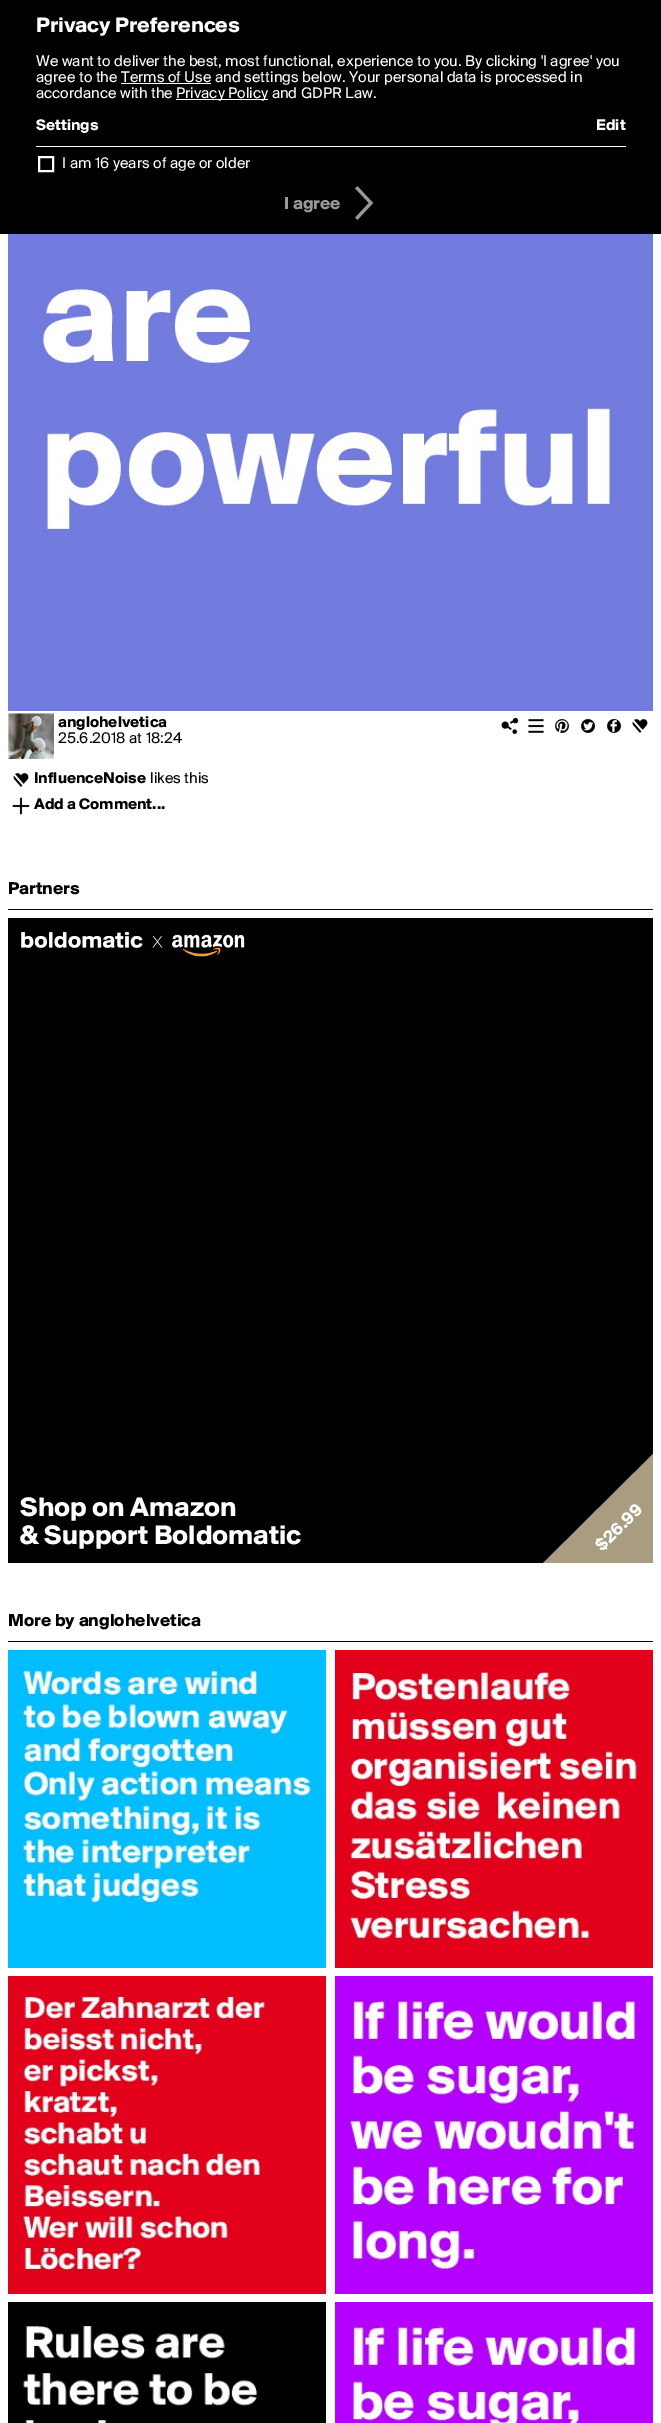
%!PS
<< /PageSize [661 2423] >> setpagedevice
/rgb { dup -16 bitshift 255 div exch dup -8 bitshift 255 and 255 div exch 255 and 255 div setrgbcolor } def
/font { [ exch dup neg 0 0 3 -1 roll 0 0 ] selectfont } def
/text { moveto show } def
/picture { 5 dict begin { /h /w /y /x /name } { exch def } forall
  gsave x y translate w h scale
  w h 8 [w 0 0 h 0 0] name (r) file false 3 colorimage grestore end } def
0 2423 translate 1 -1 scale
4 setmiterlimit
/s1 { /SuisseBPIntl-Bold 22 font 16#FFFFFF rgb } def
/s2 { /SuisseBPIntl-Regular 16 font 16#FFFFFF rgb } def
/s3 { /SuisseBPIntl-Bold 16 font 16#FFFFFF rgb } def
/s4 { /SuisseBPIntl-Bold 18 font 16#999999 rgb } def
/s5 { /SuisseBPIntl-Bold 16 font 16#000000 rgb } def
/s6 { /SuisseBPIntl-Regular 16 font 16#000000 rgb } def
/s7 { /SuisseBPIntl-Bold 18 font 16#000000 rgb } def
/s8 { /SuisseBPIntl-Bold 28 font 16#FFFFFF rgb } def
16#FFFFFF rgb
0 0 661 2423 rectfill
16#000000 rgb
0 0 661 234 rectfill
s1
(Privacy Preferences) 36 32 text
s2
(We want to deliver the best, most functional, experience to you. By clicking 'I agree' you) 36 66 text
(agree to the Terms of Use and settings below. Your personal data is processed in) 36 82 text
121 83 90 1 rectfill
(accordance with the) 36 98 text
176 99 92 1 rectfill
(Privacy Policy and GDPR Law.) 176 98 text
s3
(Settings) 36 130 text
(Edit) 596 130 text
36 146 590 1 rectfill
2 setlinewidth
39 157 14 14 rectstroke
s2
(I am 16 years of age or older) 62 168 text
s4
(I agree) 284 209 text
(pic1.raw) 355 186 19 34 picture
(pic2.raw) 8 234 645 477 picture
(pic3.raw) 8 713 46 46 picture
s5
(anglohelvetica) 58 727 text
s6
(25.6.2018 at 18:24) 58 743 text
(pic4.raw) 501 717 18 18 picture
(pic5.raw) 528 719 16 14 picture
(pic6.raw) 555 719 14 14 picture
(pic7.raw) 581 719 15 14 picture
(pic8.raw) 607 718 14 15 picture
(pic9.raw) 632 719 16 14 picture
(pic9.raw) 13 773 16 14 picture
s5
(InfluenceNoise) 34 783 text
s6
(likes this) 150 783 text
(pic10.raw) 12 797 18 18 picture
s5
(Add a Comment...) 34 809 text
8 909 645 1 rectfill
s7
(Partners) 8 894 text
8 918 645 645 rectfill
(pic11.raw) 21 931 224 26 picture
s8
(Shop on Amazon) 20 1516 text
(& Support Boldomatic) 20 1544 text
gsave
8 918 645 645 rectclip
16#AA9C81 rgb
529 1577 moveto 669 1438 lineto 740 1509 lineto 600 1648 lineto closepath fill
grestore
/SuisseBPIntl-Bold 18 font
gsave 602 1552 translate -45 rotate 0 0 moveto ($26.99) show grestore
16#000000 rgb
8 1641 645 1 rectfill
(More by anglohelvetica) 8 1626 text
(pic12.raw) 8 1650 318 318 picture
(pic13.raw) 335 1650 318 318 picture
(pic14.raw) 8 1976 318 318 picture
(pic15.raw) 335 1976 318 318 picture
(pic16.raw) 8 2302 318 121 picture
(pic17.raw) 335 2302 318 121 picture
showpage
